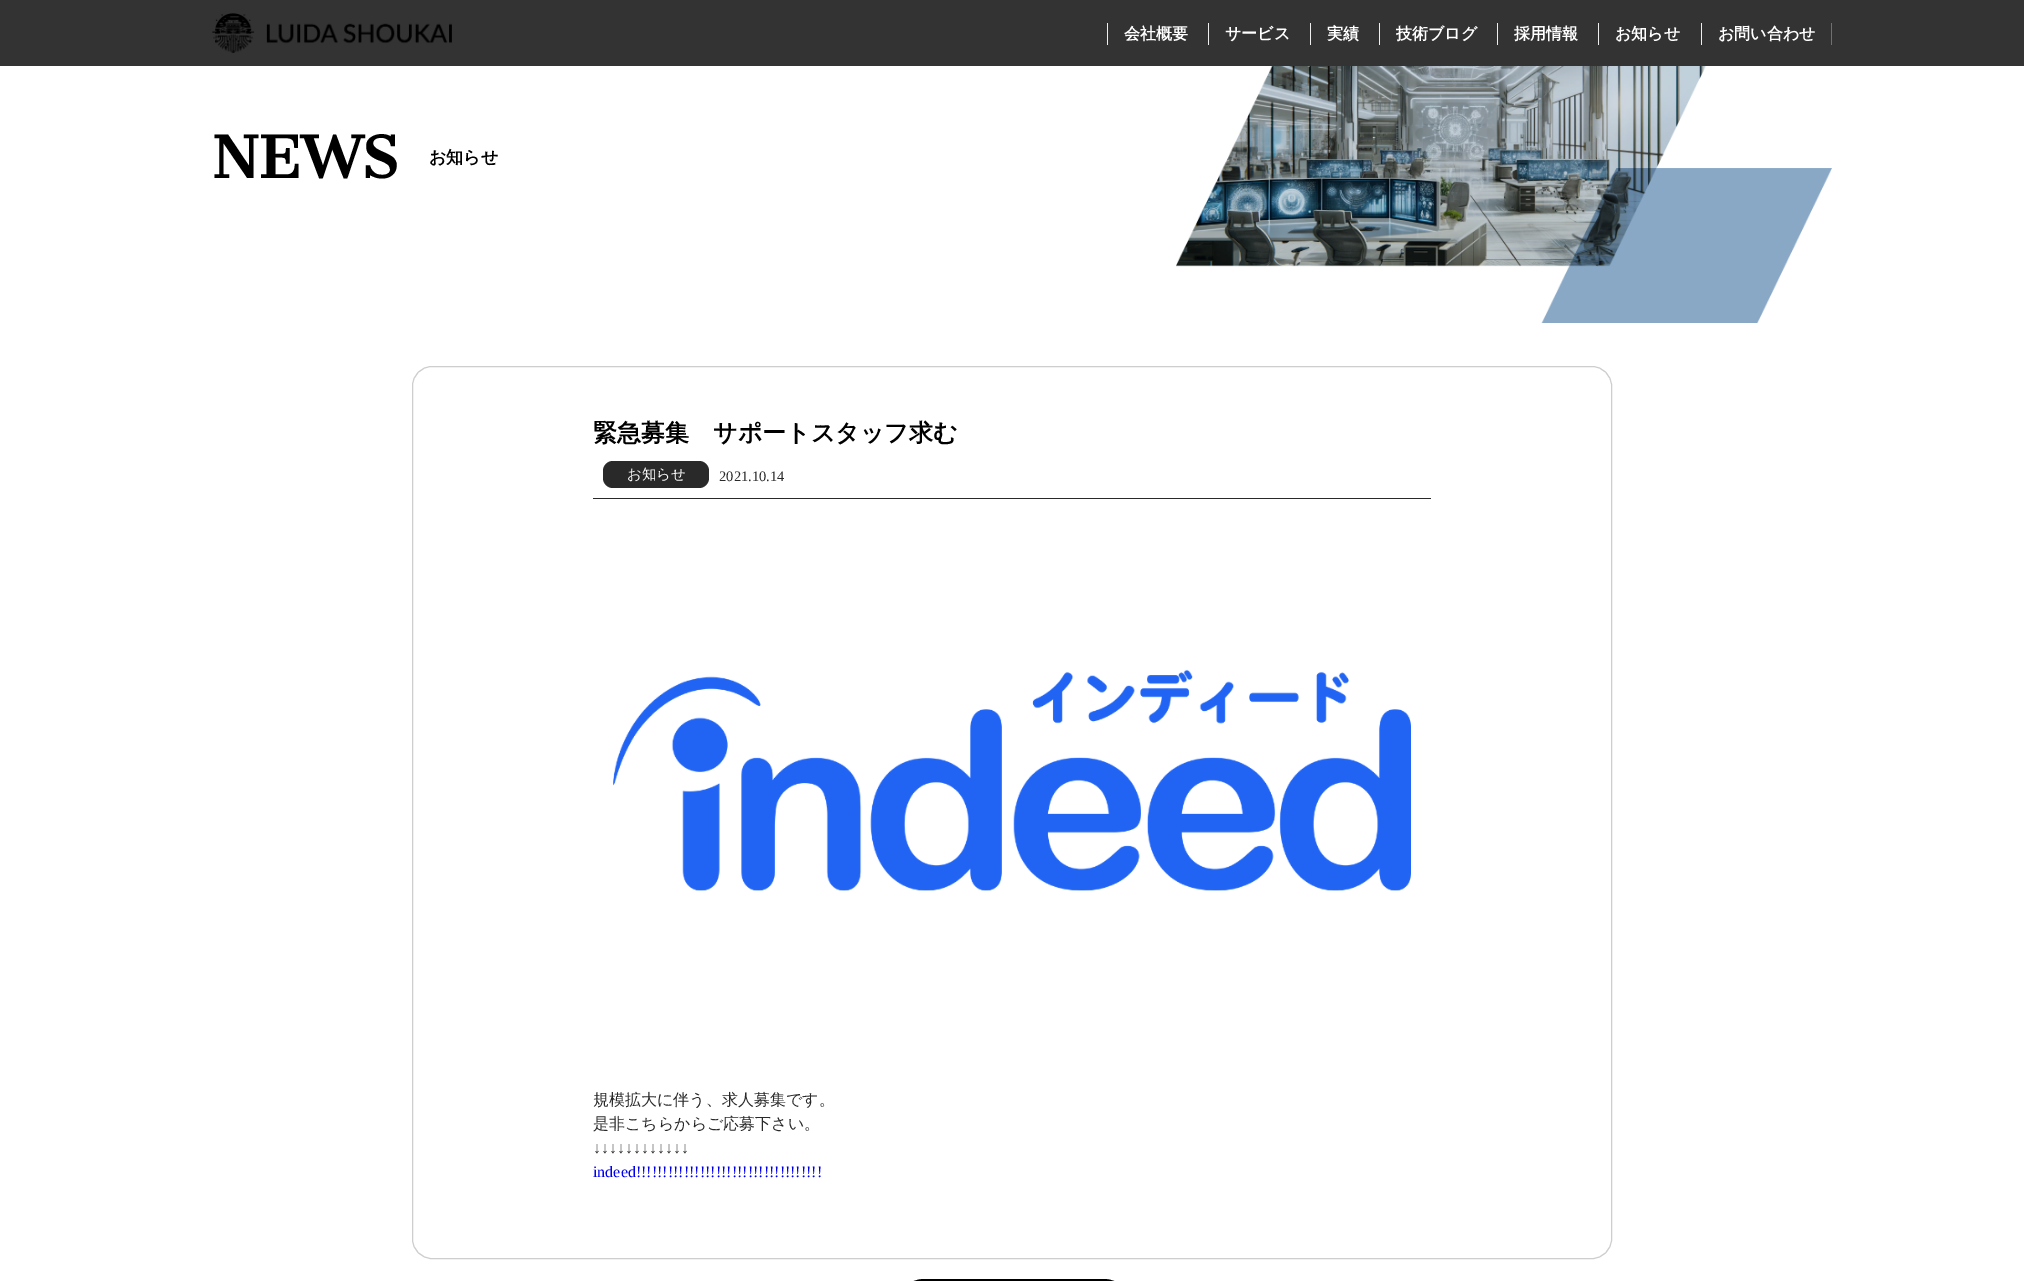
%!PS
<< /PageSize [2024 1281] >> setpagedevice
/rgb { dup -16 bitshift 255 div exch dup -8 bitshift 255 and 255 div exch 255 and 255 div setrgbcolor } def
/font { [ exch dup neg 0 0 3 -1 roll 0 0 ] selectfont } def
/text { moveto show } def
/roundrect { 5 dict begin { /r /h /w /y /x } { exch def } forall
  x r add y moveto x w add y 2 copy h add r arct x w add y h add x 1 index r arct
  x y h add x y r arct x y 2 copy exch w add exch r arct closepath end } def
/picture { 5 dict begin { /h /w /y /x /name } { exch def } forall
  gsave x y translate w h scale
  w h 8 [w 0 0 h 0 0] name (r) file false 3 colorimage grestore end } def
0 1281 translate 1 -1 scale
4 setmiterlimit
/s1 { /WenQuanYiZenHei-Bold 16 font 16#FFFFFF rgb } def
/s2 { /CantataOne-Bold 56 font 16#000000 rgb } def
/s3 { /WenQuanYiZenHei-Bold 17 font 16#000000 rgb } def
/s4 { /WenQuanYiZenHei-Bold 24 font 16#000000 rgb } def
/s5 { /WenQuanYiZenHei-Medium 14.5 font 16#FFFFFF rgb } def
/s6 { /LiberationSerif-Regular 14.5 font 16#292929 rgb } def
/s7 { /WenQuanYiZenHei-Medium 16 font 16#292929 rgb } def
/s8 { /LiberationSerif-Regular 16 font 16#292929 rgb } def
/s9 { /LiberationSerif-Regular 16 font 16#0000EE rgb } def
16#FFFFFF rgb
0 0 2024 1281 rectfill
16#333333 rgb
0 0 2024 66 rectfill
(pic1.raw) 212 13 240 40 picture
16#EEEEEE rgb
1107 23 1 22 rectfill
s1
(会社概要) 1124 39 text
16#EEEEEE rgb
1208 23 1 22 rectfill
s1
(サービス) 1225 39 text
16#EEEEEE rgb
1310 23 1 22 rectfill
s1
(実績) 1327 39 text
16#EEEEEE rgb
1379 23 1 22 rectfill
s1
(技術ブログ) 1396 39 text
16#EEEEEE rgb
1497 23 1 22 rectfill
s1
(採用情報) 1514 39 text
16#EEEEEE rgb
1598 23 1 22 rectfill
s1
(お知らせ) 1615 39 text
16#707070 rgb
1831 23 1 22 rectfill
16#EEEEEE rgb
1701 23 1 22 rectfill
s1
(お問い合わせ) 1718 39 text
s2
(NEWS) 212 178 text
s3
(お知らせ) 429 163 text
(pic2.raw) 1176 66 656 257 picture
16#CECECE rgb
412.5 366.5 1199 892 19.5 roundrect stroke
16#292929 rgb
593 498 838 1 rectfill
s4
(緊急募集　サポートスタッフ求む) 593 441 text
16#292929 rgb
603 461 106 27 10 roundrect fill
s5
(お知らせ) 627 479 text
s6
(2021.10.14) 719 481 text
(pic3.raw) 613 669 798 222 picture
s7
(規模拡大に伴う、求人募集です。) 593 1105 text
(是非こちらからご応募下さい。) 593 1129 text
s8
(↓↓↓↓↓↓↓↓↓↓↓↓) 593 1153 text
s9
(indeed!!!!!!!!!!!!!!!!!!!!!!!!!!!!!!!!!!!) 593 1177 text
16#000000 rgb
2 setlinewidth
898 1280 232 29 26 roundrect stroke
showpage
